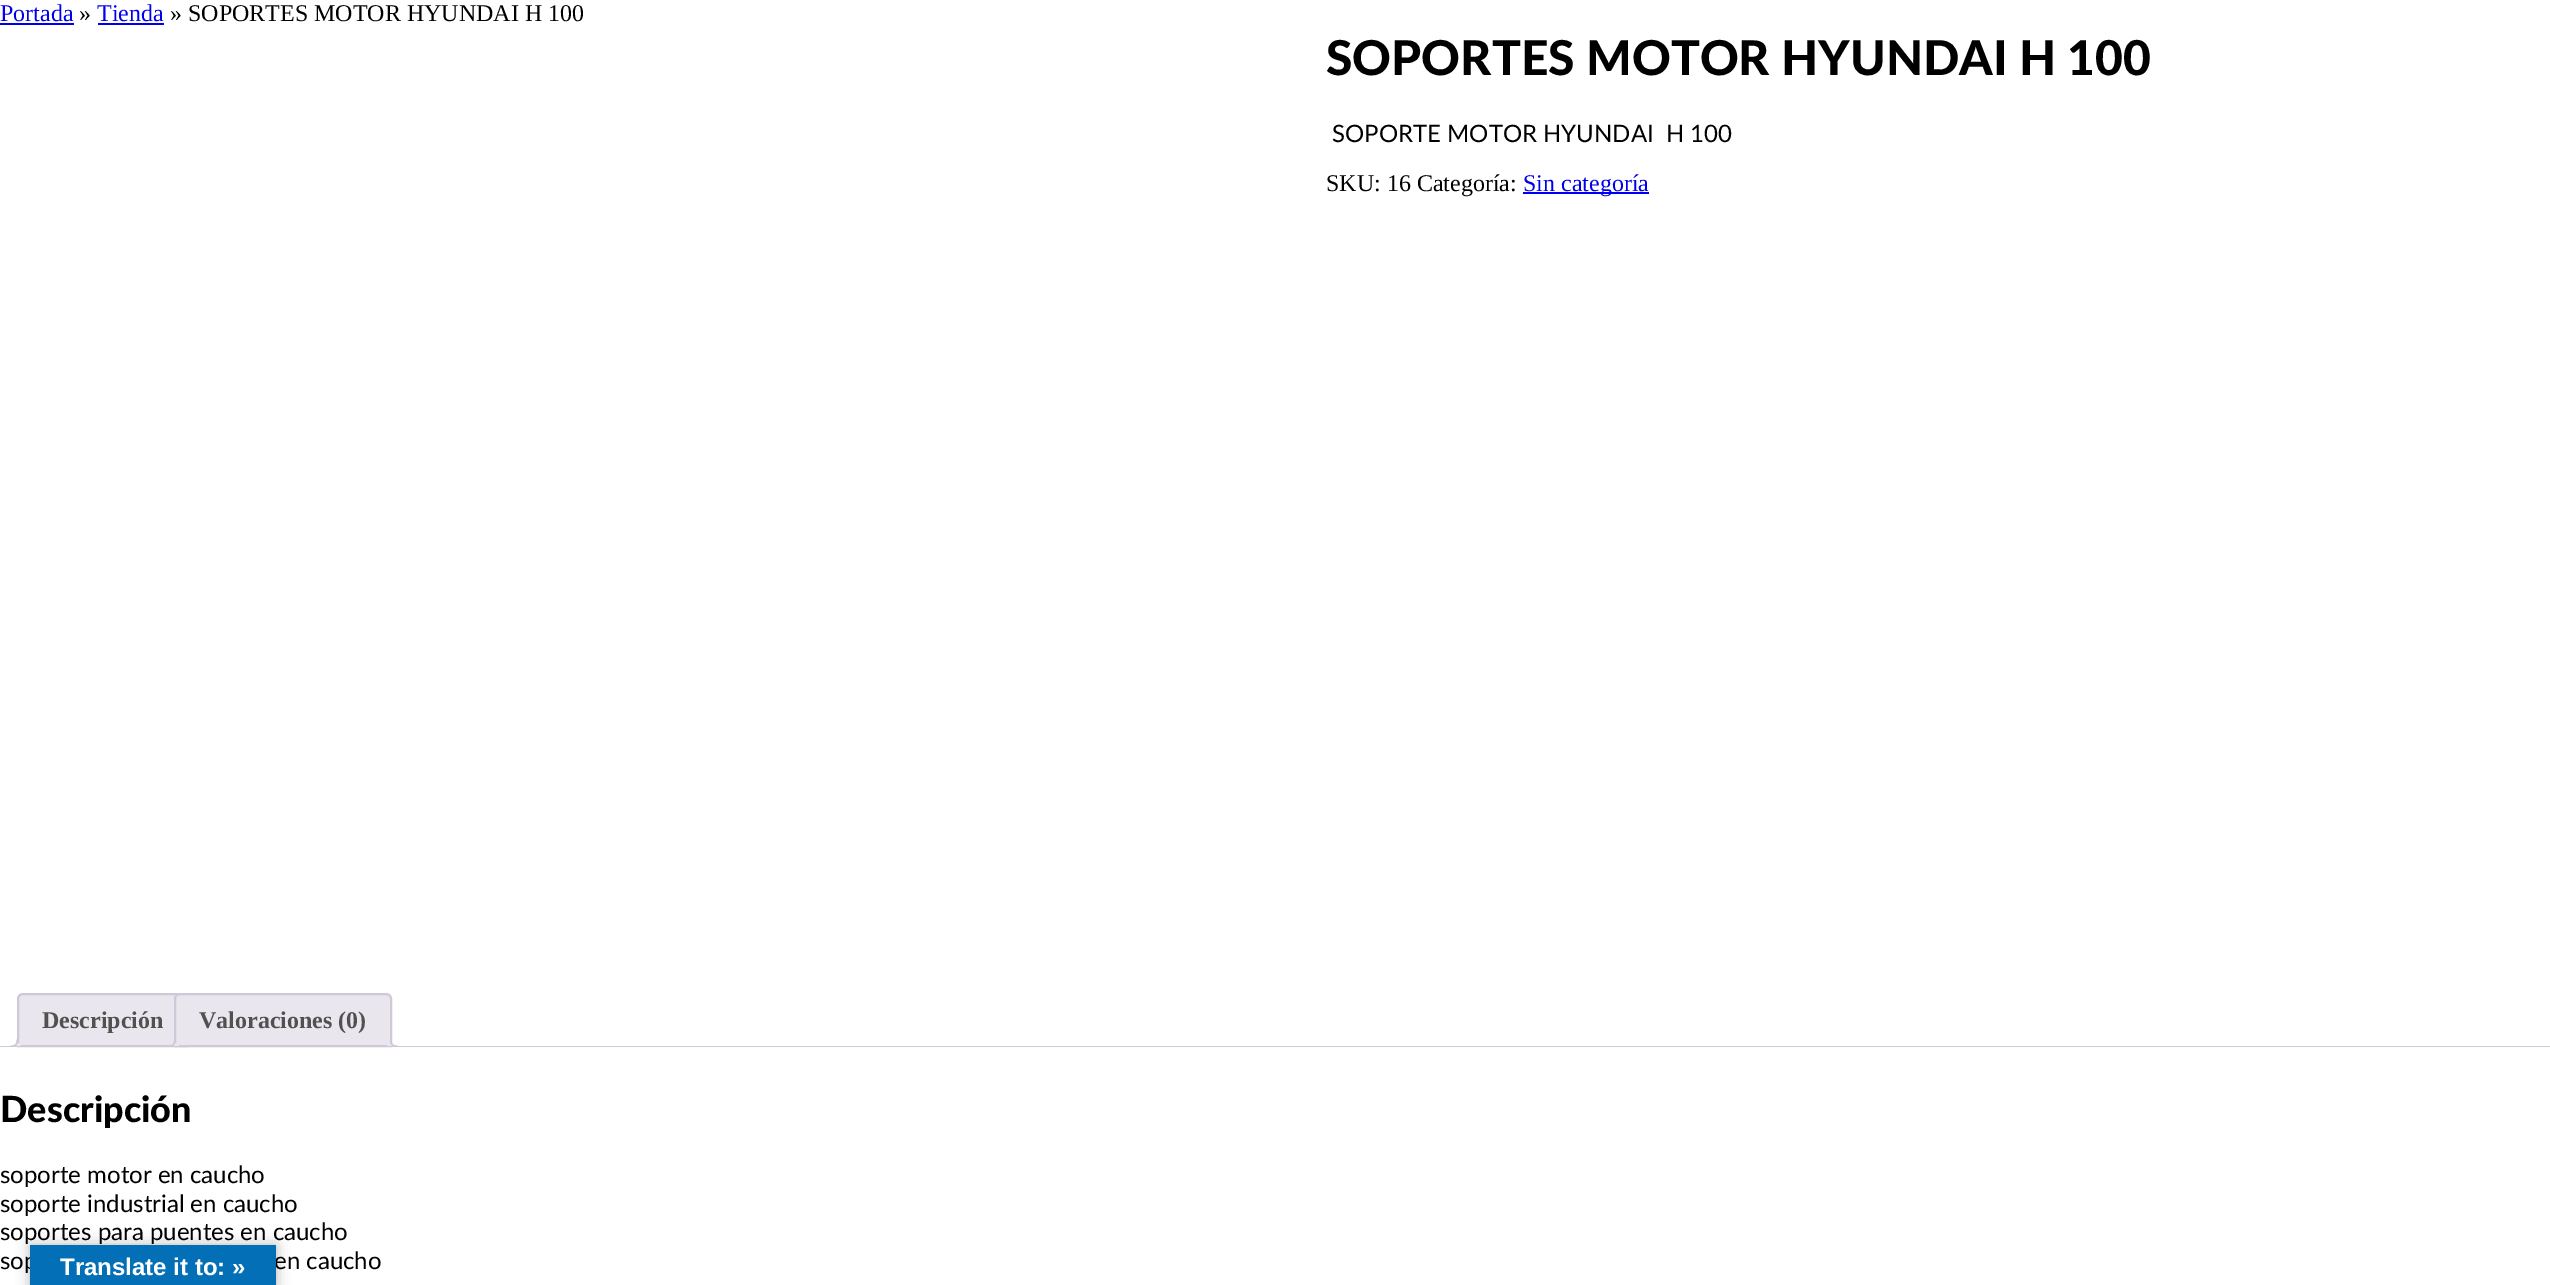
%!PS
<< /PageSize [2550 1285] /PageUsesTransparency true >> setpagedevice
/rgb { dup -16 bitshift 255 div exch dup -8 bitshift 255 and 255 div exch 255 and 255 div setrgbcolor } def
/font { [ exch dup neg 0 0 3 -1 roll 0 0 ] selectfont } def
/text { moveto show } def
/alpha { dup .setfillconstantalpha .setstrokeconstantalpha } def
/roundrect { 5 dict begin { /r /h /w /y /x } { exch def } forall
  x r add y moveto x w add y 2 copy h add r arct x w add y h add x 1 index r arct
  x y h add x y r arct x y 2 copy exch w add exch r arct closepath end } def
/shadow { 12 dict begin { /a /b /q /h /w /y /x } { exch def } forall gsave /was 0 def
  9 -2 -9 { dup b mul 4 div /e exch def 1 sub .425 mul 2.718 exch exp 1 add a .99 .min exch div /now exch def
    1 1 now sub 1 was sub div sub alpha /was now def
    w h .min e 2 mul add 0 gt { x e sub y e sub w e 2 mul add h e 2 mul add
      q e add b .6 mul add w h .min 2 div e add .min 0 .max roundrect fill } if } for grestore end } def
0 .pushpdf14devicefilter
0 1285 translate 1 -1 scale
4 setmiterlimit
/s1 { /LiberationSerif-Regular 24 font 16#0000EE rgb } def
/s2 { /LiberationSerif-Regular 24 font 16#000000 rgb } def
/s3 { /Lato-Black 48 font 16#000000 rgb } def
/s4 { /Lato-Regular 24 font 16#000000 rgb } def
/s5 { /LiberationSerif-Bold 24 font 16#515151 rgb } def
/s6 { /Lato-Black 36 font 16#000000 rgb } def
/s7 { /LiberationSans-Bold 24 font 16#FFFFFF rgb } def
16#FFFFFF rgb
0 0 2550 1285 rectfill
s1
(Portada) 0 21 text
0 23 74 2 rectfill
s2
(») 79 21 text
s1
(Tienda) 97 21 text
98 23 66 2 rectfill
s2
(» SOPORTES MOTOR HYUNDAI H 100) 170 21 text
s3
(SOPORTES MOTOR HYUNDAI H 100) 1326 75 text
s4
(SOPORTE MOTOR HYUNDAI  H 100) 1332 142 text
s2
(SKU: 16 Categoría:) 1326 191 text
16#0000EE rgb
1523 192 126 2 rectfill
(Sin categoría) 1523 191 text
16#E9E6ED rgb
23 994 moveto 183 994 lineto 186 994 188 996 188 999 curveto 188 1046 lineto 18 1046 lineto 18 999 lineto 18 996 20 994 23 994 curveto closepath gsave fill grestore
16#CFC8D8 rgb
2 setlinewidth
stroke
s5
(Descripción) 42 1028 text
gsave
0 993 2550 54 rectclip
16#E9E6ED rgb
14 1046.5 moveto 14 1050 lineto 18.5 1050 21 1047.5 21 1043 curveto 17.5 1043 lineto 17 1044.5 15.5 1046 14 1046.5 curveto closepath fill
grestore
16#CFC8D8 rgb
10.5 1039.5 moveto 18 1039.5 lineto 18 1045 16 1047 10.5 1047 curveto closepath 10.5 1039.5 moveto 16.5 1039.5 lineto 16.5 1044 15 1045.5 10.5 1045.5 curveto closepath eofill
16#E9E6ED rgb
180 994 moveto 386 994 lineto 389 994 391 996 391 999 curveto 391 1046 lineto 175 1046 lineto 175 999 lineto 175 996 177 994 180 994 curveto closepath gsave fill grestore
16#CFC8D8 rgb
stroke
s5
(Valoraciones \(0\)) 199 1028 text
gsave
0 993 2550 54 rectclip
16#E9E6ED rgb
171 1047 moveto 171 1050 lineto 176 1050 179 1048.5 179 1043 curveto 175 1043 lineto 174.5 1045 173 1046.5 171 1047 curveto closepath fill
grestore
16#CFC8D8 rgb
168 1039.5 moveto 175.5 1039.5 lineto 175.5 1045 173.5 1047 168 1047 curveto closepath 168 1039.5 moveto 174 1039.5 lineto 174 1044 172.5 1045.5 168 1045.5 curveto closepath eofill
gsave
0 993 2550 54 rectclip
16#E9E6ED rgb
387 1043 moveto 387 1048.5 390 1050 395 1050 curveto 395 1047 lineto 393 1046.5 391 1045 390.5 1043 curveto closepath fill
grestore
390 1039.5 moveto 397.5 1039.5 lineto 397.5 1047 lineto 393.5 1047 390 1045.5 390 1041 curveto closepath 391.5 1039.5 moveto 397.5 1039.5 lineto 397.5 1045.5 lineto 394.5 1045.5 391.5 1044.5 391.5 1041 curveto closepath eofill
0 1046 2550 1 rectfill
s6
(Descripción) 0 1122 text
s4
(soporte motor en caucho) 0 1183 text
(soporte industrial en caucho) 0 1212 text
(soportes para puentes en caucho) 0 1240 text
(sop) 0 1269 text
(en caucho) 274 1269 text
30 1245 246 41 0 7 0.3 shadow
16#036FB7 rgb
30 1245 246 40 rectfill
s7
(Translate it to: ») 60 1275 text
.poppdf14devicefilter showpage
